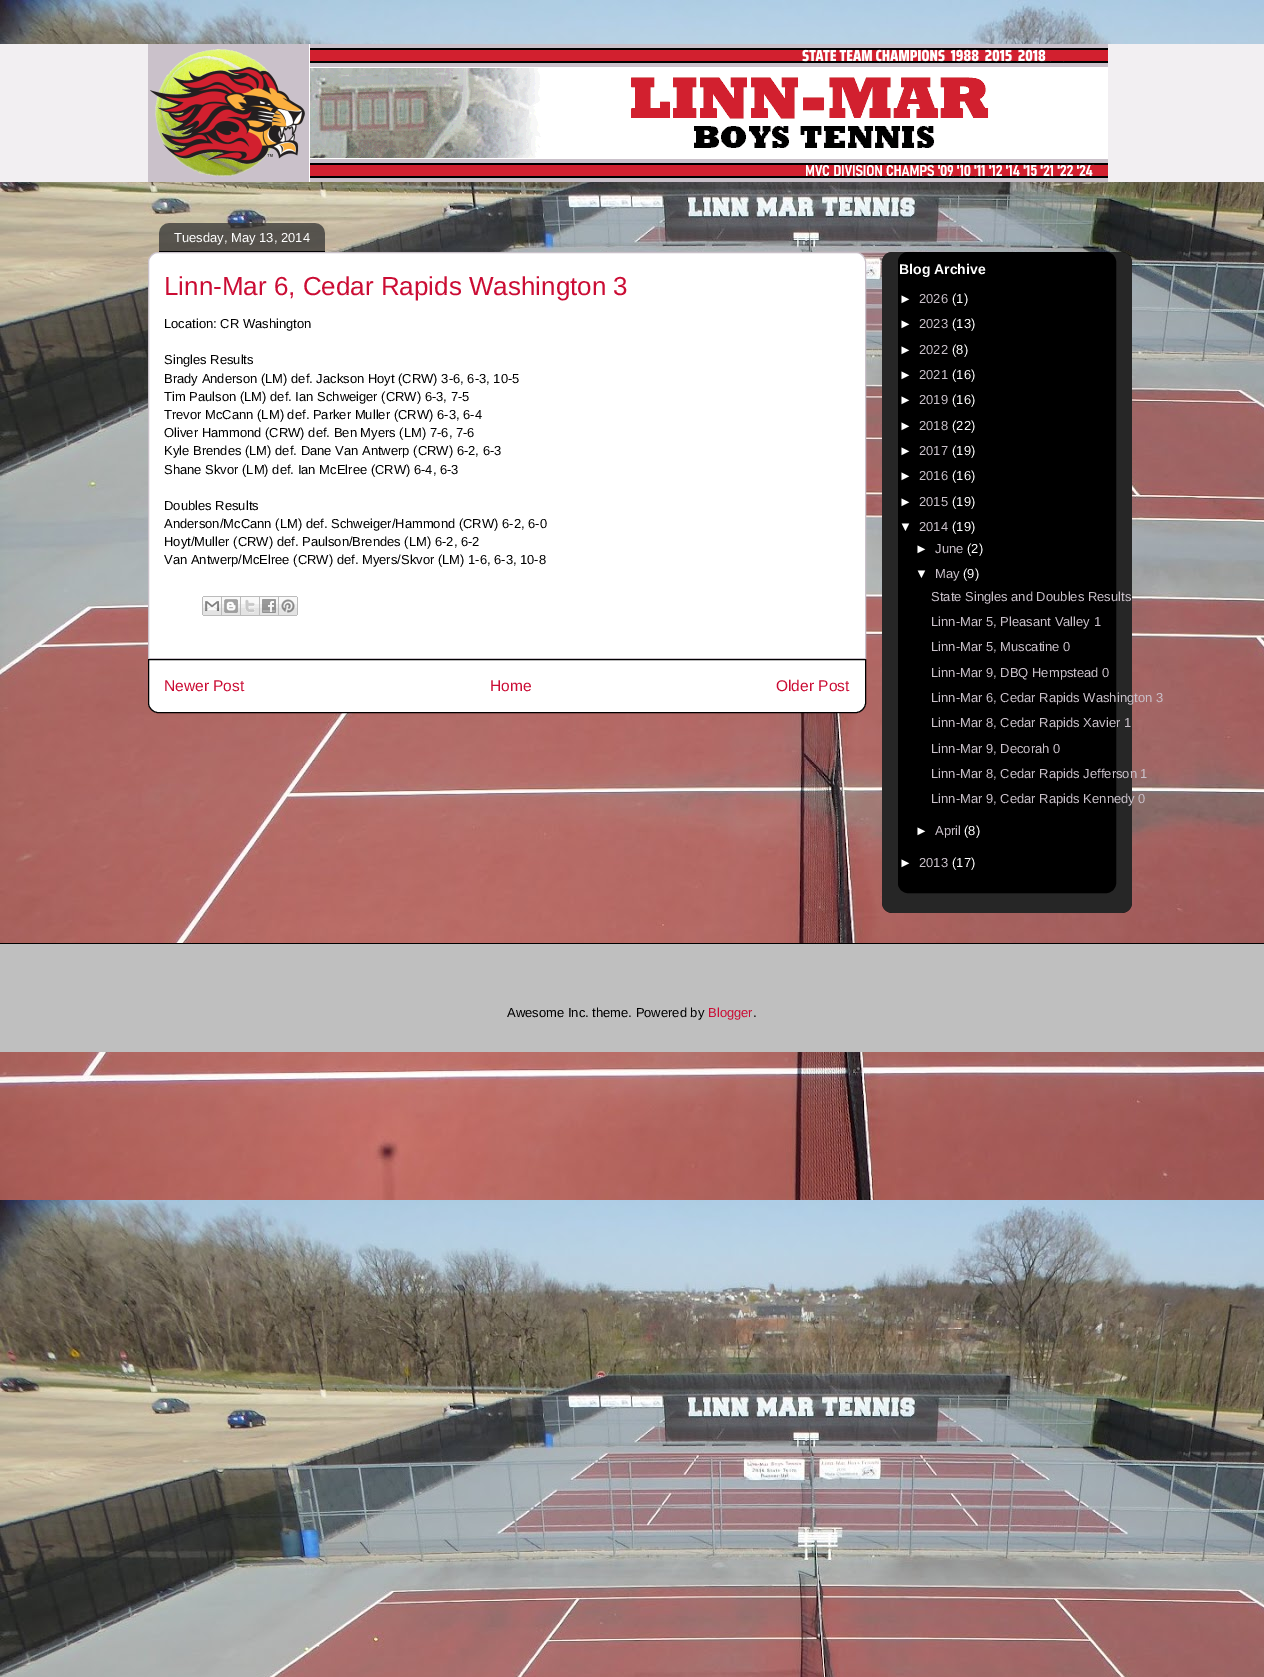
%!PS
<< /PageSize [1264 1677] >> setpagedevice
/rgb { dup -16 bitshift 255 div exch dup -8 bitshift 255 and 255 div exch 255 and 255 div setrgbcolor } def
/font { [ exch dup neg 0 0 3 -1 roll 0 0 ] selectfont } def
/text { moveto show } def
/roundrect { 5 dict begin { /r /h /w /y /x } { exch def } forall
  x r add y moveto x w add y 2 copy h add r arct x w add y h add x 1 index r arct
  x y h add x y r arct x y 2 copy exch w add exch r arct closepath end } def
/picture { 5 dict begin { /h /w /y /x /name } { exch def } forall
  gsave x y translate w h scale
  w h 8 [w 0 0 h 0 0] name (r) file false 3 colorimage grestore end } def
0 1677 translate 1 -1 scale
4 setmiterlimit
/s1 { /LiberationSans-Regular 13 font 16#FFFFFF rgb } def
/s2 { /LiberationSans-Regular 26 font 16#CB0C34 rgb } def
/s3 { /LiberationSans-Regular 13 font 16#000000 rgb } def
/s4 { /LiberationSans-Regular 15.5 font 16#CB0C34 rgb } def
/s5 { /LiberationSans-Bold 14 font 16#FFFFFF rgb } def
/s6 { /LiberationSans-Regular 13 font 16#CAC1CA rgb } def
/s7 { /LiberationSans-Regular 13 font 16#CB0C34 rgb } def
16#FFFFFF rgb
0 0 1264 1677 rectfill
(pic1.raw) 0 0 1264 1677 picture
16#F2EFF2 rgb
0 44 1264 138 rectfill
(pic2.raw) 148 44 960 138 picture
16#FFFFFF rgb
158 252.5 moveto 856 252.5 lineto 861 252.5 865.5 257 865.5 262 curveto 865.5 658.5 lineto 148.5 658.5 lineto 148.5 262 lineto 148.5 257 153 252.5 158 252.5 curveto closepath gsave fill grestore
16#CAC1CA rgb
stroke
(pic3.raw) 159 223 166 28 picture
16#000000 rgb
159 251 166 1 rectfill
s1
(Tuesday, May 13, 2014) 174 242 text
s2
(Linn-Mar 6, Cedar Rapids Washington 3) 164 295 text
s3
(Location: CR Washington) 164 328 text
(Singles Results) 164 364 text
(Brady Anderson \(LM\) def. Jackson Hoyt \(CRW\) 3-6, 6-3, 10-5) 164 383 text
(Tim Paulson \(LM\) def. Ian Schweiger \(CRW\) 6-3, 7-5) 164 401 text
(Trevor McCann \(LM\) def. Parker Muller \(CRW\) 6-3, 6-4) 164 419 text
(Oliver Hammond \(CRW\) def. Ben Myers \(LM\) 7-6, 7-6) 164 437 text
(Kyle Brendes \(LM\) def. Dane Van Antwerp \(CRW\) 6-2, 6-3) 164 455 text
(Shane Skvor \(LM\) def. Ian McElree \(CRW\) 6-4, 6-3) 164 474 text
(Doubles Results) 164 510 text
(Anderson/McCann \(LM\) def. Schweiger/Hammond \(CRW\) 6-2, 6-0) 164 528 text
(Hoyt/Muller \(CRW\) def. Paulson/Brendes \(LM\) 6-2, 6-2) 164 546 text
(Van Antwerp/McElree \(CRW\) def. Myers/Skvor \(LM\) 1-6, 6-3, 10-8) 164 564 text
(pic4.raw) 202 596 20 20 picture
(pic5.raw) 222 596 19 20 picture
(pic6.raw) 241 596 19 20 picture
(pic7.raw) 260 596 19 20 picture
(pic8.raw) 279 596 19 20 picture
16#FFFFFF rgb
148.5 659.5 moveto 865.5 659.5 lineto 865.5 703 lineto 865.5 708 861 712.5 856 712.5 curveto 158 712.5 lineto 153 712.5 148.5 708 148.5 703 curveto closepath gsave fill grestore
16#000000 rgb
stroke
s4
(Newer Post) 164 691 text
(Home) 490 691 text
(Older Post) 776 691 text
16#000000 rgb
882 252 250 661 10 roundrect fill
(pic9.raw) 882 252 250 661 picture
898.5 252.5 217 640 9.5 roundrect gsave fill grestore
stroke
s5
(Blog Archive) 899 274 text
s1
(►) 899 303 text
s6
(2026) 919 303 text
s1
(\(1\)) 952 303 text
(►) 899 328 text
s6
(2023) 919 328 text
s1
(\(13\)) 952 328 text
(►) 899 354 text
s6
(2022) 919 354 text
s1
(\(8\)) 952 354 text
(►) 899 379 text
s6
(2021) 919 379 text
s1
(\(16\)) 952 379 text
(►) 899 404 text
s6
(2019) 919 404 text
s1
(\(16\)) 952 404 text
(►) 899 430 text
s6
(2018) 919 430 text
s1
(\(22\)) 952 430 text
(►) 899 455 text
s6
(2017) 919 455 text
s1
(\(19\)) 952 455 text
(►) 899 480 text
s6
(2016) 919 480 text
s1
(\(16\)) 952 480 text
(►) 899 506 text
s6
(2015) 919 506 text
s1
(\(19\)) 952 506 text
(▼) 899 531 text
s6
(2014) 919 531 text
s1
(\(19\)) 952 531 text
(►) 915 553 text
s6
(June) 935 553 text
s1
(\(2\)) 967 553 text
(▼) 915 578 text
s6
(May) 935 578 text
s1
(\(9\)) 963 578 text
s6
(State Singles and Doubles Results) 931 601 text
(Linn-Mar 5, Pleasant Valley 1) 931 626 text
(Linn-Mar 5, Muscatine 0) 931 651 text
(Linn-Mar 9, DBQ Hempstead 0) 931 677 text
(Linn-Mar 6, Cedar Rapids Washington 3) 931 702 text
(Linn-Mar 8, Cedar Rapids Xavier 1) 931 727 text
(Linn-Mar 9, Decorah 0) 931 753 text
(Linn-Mar 8, Cedar Rapids Jefferson 1) 931 778 text
(Linn-Mar 9, Cedar Rapids Kennedy 0) 931 803 text
s1
(►) 915 835 text
s6
(April) 935 835 text
s1
(\(8\)) 964 835 text
(►) 899 867 text
s6
(2013) 919 867 text
s1
(\(17\)) 952 867 text
16#BFBFBF rgb
0 944 1264 108 rectfill
16#000000 rgb
0 943 1264 1 rectfill
(Awesome Inc. theme. Powered by) 507 1017 text
s7
(Blogger) 708 1017 text
s3
(.) 753 1017 text
showpage
